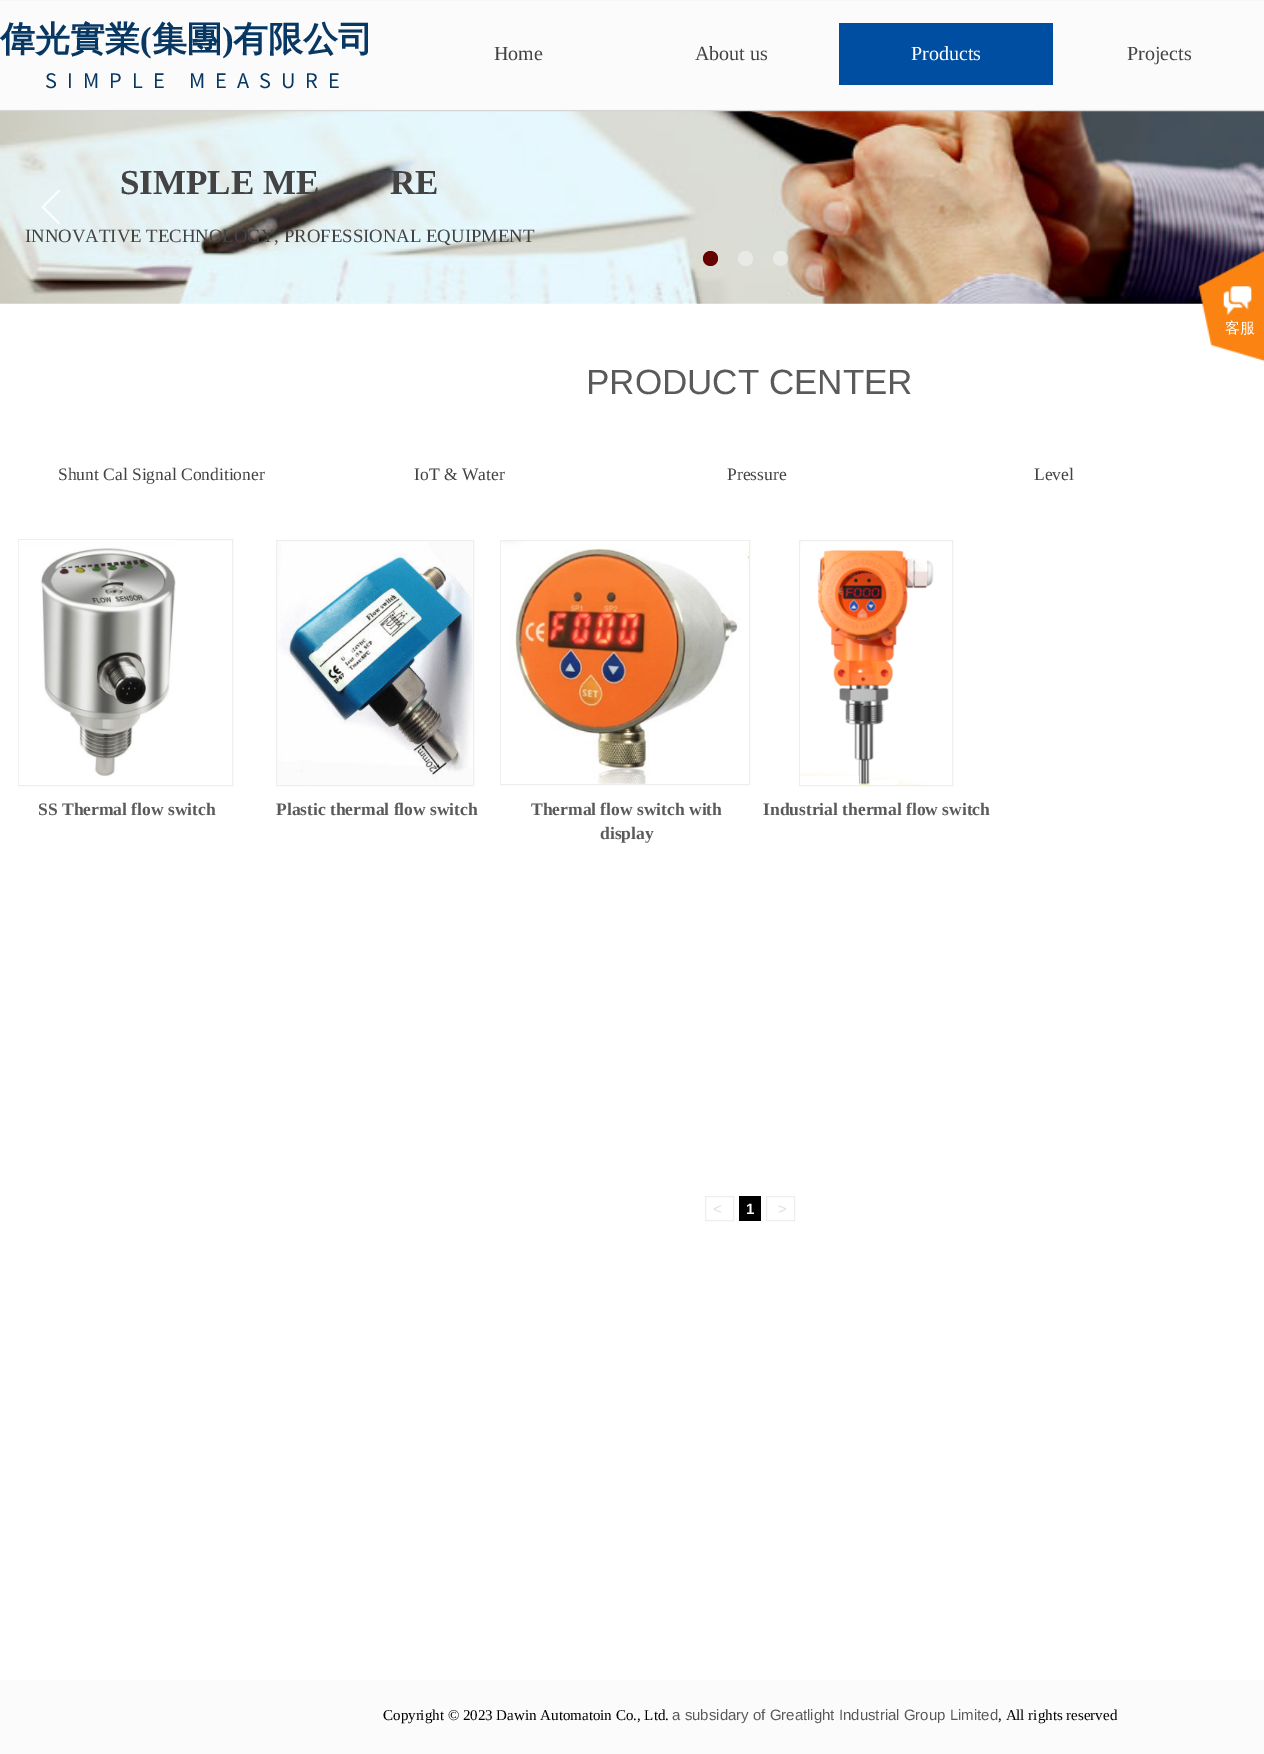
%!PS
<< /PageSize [1264 1754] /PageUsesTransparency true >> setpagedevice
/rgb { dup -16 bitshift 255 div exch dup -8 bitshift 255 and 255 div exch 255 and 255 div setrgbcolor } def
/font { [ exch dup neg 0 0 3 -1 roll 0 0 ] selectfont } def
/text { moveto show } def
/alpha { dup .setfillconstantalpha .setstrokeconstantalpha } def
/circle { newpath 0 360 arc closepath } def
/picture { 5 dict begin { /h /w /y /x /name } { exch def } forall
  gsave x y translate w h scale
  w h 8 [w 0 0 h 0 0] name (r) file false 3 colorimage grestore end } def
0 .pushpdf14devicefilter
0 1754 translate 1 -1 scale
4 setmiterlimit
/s1 { /WenQuanYiZenHei-Bold 35 font 16#073763 rgb } def
/s2 { /LiberationSerif-Bold 35 font 16#073763 rgb } def
/s3 { /LiberationSerif-Regular 20 font 16#434343 rgb } def
/s4 { /LiberationSerif-Regular 20 font 16#FFFFFF rgb } def
/s5 { /LiberationSerif-Bold 35 font 16#434343 rgb } def
/s6 { /LiberationSerif-Regular 18.75 font 16#434343 rgb } def
/s7 { /LiberationSans-Regular 35 font 16#5A5A5A rgb } def
/s8 { /LiberationSerif-Regular 17.5 font 16#434343 rgb } def
/s9 { /LiberationSerif-Bold 17.5 font 16#5A5A5A rgb } def
/s10 { /LiberationSans-Regular 15 font 16#DDDDDD rgb } def
/s11 { /LiberationSans-Bold 15 font 16#FFFFFF rgb } def
/s12 { /LiberationSerif-Regular 15 font 16#000000 rgb } def
/s13 { /LiberationSans-Regular 15 font 16#5A5A5A rgb } def
/s14 { /WenQuanYiZenHei-Medium 15 font 16#FFFFFF rgb } def
16#FFFFFF rgb
0 0 1264 1754 rectfill
16#D9D9D9 rgb
0 0 1264 112 rectfill
(pic1.raw) 0 0 1264 112 picture
s1
(偉光實業) 0 51 text
s2
(\() 140 51 text
s1
(集團) 152 51 text
s2
(\)) 222 51 text
s1
(有限公司) 233 51 text
/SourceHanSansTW-Regular 20 font
45 88 moveto 10 0 (SIMPLE) ashow
189 88 moveto 10 0 (MEASURE) ashow
s3
(Home) 494 60 text
(About us) 695 60 text
16#004EA2 rgb
839 23 214 62 rectfill
s4
(Products) 911 60 text
s3
(Projects) 1127 60 text
(pic2.raw) 0 111 1264 193 picture
(pic3.raw) 41 190 19 35 picture
16#660000 rgb
710.5 258.5 7.5 circle fill
16#E9EAE5 rgb
745.5 258.5 7.5 circle fill
0.4 alpha
16#FFFFFF rgb
780.5 258.5 7.5 circle fill
1 alpha
s5
(SIMPLE ME) 120 194 text
(RE) 390 194 text
s6
(INNOVATIVE TECHNOLOGY, PROFESSIONAL EQUIPMENT) 25 242 text
s7
(PRODUCT CENTER) 586 394 text
s8
(Shunt Cal Signal Conditioner) 58 480 text
(IoT & Water) 414 480 text
(Pressure) 727 480 text
(Level) 1034 480 text
16#EEEEEE rgb
18.5 539.5 214 246 rectstroke
(pic4.raw) 18 540 158 245 picture
s9
(SS Thermal flow switch) 38 815 text
16#EEEEEE rgb
276.5 540.5 197 245 rectstroke
(pic5.raw) 278 542 195 243 picture
s9
(Plastic thermal flow switch) 276 815 text
16#EEEEEE rgb
500.5 540.5 249 244 rectstroke
(pic6.raw) 501 541 248 243 picture
s9
(Thermal flow switch with) 531 815 text
(display) 600 839 text
16#EEEEEE rgb
799.5 540.5 153 245 rectstroke
(pic7.raw) 800 550 134 235 picture
s9
(Industrial thermal flow switch) 763 815 text
16#EEEEEE rgb
705.5 1196.5 28 24 rectstroke
s10
(<) 713 1214 text
16#000000 rgb
739 1196 22 25 rectfill
s11
(1) 746 1214 text
16#EEEEEE rgb
766.5 1196.5 28 24 rectstroke
s10
(>) 778 1214 text
16#FBFBFB rgb
0 1680 1264 74 rectfill
s12
(Copyright © 2023 Dawin Automatoin Co., Ltd.) 383 1720 text
s13
(a subsidary of Greatlight Industrial Group Limited) 672 1720 text
s12
(, All rights reserved) 998 1720 text
(pic8.raw) 1198 250 66 112 picture
s14
(客服) 1225 333 text
.poppdf14devicefilter showpage
